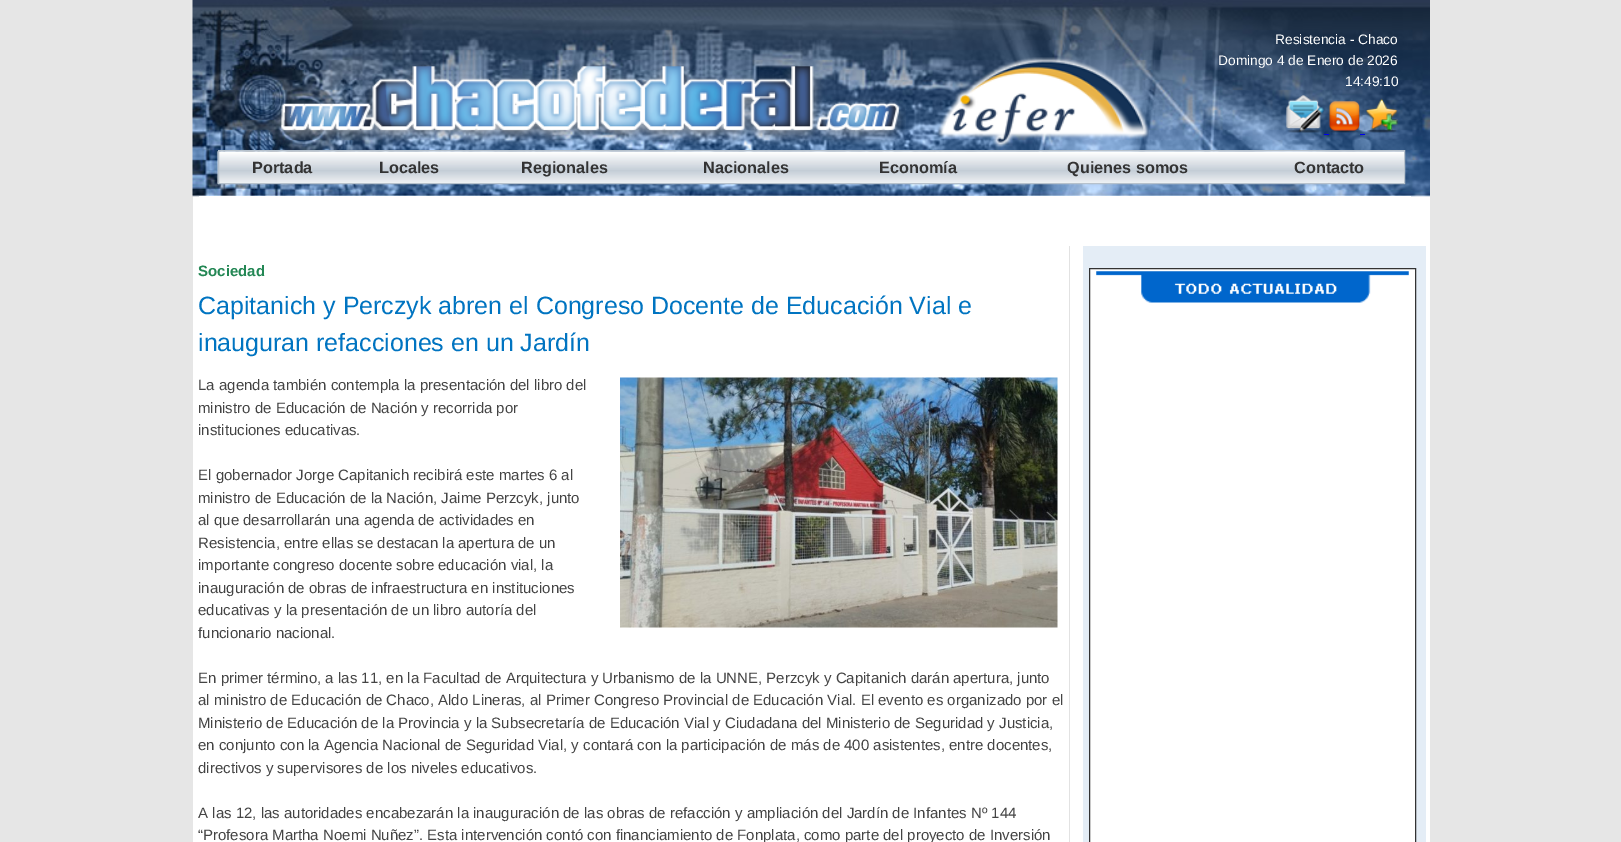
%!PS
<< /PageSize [1621 842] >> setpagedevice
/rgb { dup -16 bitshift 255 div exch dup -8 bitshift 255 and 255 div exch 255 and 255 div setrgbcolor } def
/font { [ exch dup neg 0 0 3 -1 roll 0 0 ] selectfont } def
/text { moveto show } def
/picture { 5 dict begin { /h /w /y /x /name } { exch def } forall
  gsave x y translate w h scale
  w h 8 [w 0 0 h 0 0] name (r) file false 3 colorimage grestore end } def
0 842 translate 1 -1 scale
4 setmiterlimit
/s1 { /LiberationSans-Regular 13.75 font 16#FFFFFF rgb } def
/s2 { /LiberationSans-Bold 16.25 font 16#333333 rgb } def
/s3 { /LiberationSans-Bold 15 font 16#238754 rgb } def
/s4 { /LiberationSans-Regular 25 font 16#0074C1 rgb } def
/s5 { /LiberationSans-Regular 15 font 16#444444 rgb } def
16#E6E6E6 rgb
0 0 1621 842 rectfill
16#FFFFFF rgb
193 196 1237 646 rectfill
(pic1.raw) 192 0 1238 197 picture
(pic2.raw) 272 61 634 85 picture
(pic3.raw) 937 57 213 91 picture
s1
(Resistencia - Chaco) 1275 44 text
(Domingo 4 de Enero de 2026) 1218 65 text
(14:49:10) 1345 86 text
(pic4.raw) 1286 95 38 38 picture
(pic5.raw) 1328 101 32 32 picture
(pic6.raw) 1366 98 32 35 picture
16#0000EE rgb
1324 134 5 1 rectfill
1360 134 5 1 rectfill
(pic7.raw) 217 151 1187 33 picture
16#B6C1CC rgb
218.5 150.5 1186 33 rectstroke
s2
(Portada) 252 173 text
(Locales) 379 173 text
(Regionales) 521 173 text
(Nacionales) 703 173 text
(Economía) 879 173 text
(Quienes somos) 1067 173 text
(Contacto) 1294 173 text
16#FFFFFF rgb
199 196 1212 1 rectfill
16#E2E2E2 rgb
1069 246 1 596 rectfill
s3
(Sociedad) 198 276 text
s4
(Capitanich y Perczyk abren el Congreso Docente de Educación Vial e) 198 314 text
(inauguran refacciones en un Jardín) 198 351 text
s5
(La agenda también contempla la presentación del libro del) 198 390 text
(ministro de Educación de Nación y recorrida por) 198 413 text
(instituciones educativas.) 198 435 text
(pic8.raw) 620 377 438 251 picture
(El gobernador Jorge Capitanich recibirá este martes 6 al) 198 480 text
(ministro de Educación de la Nación, Jaime Perzcyk, junto) 198 503 text
(al que desarrollarán una agenda de actividades en) 198 525 text
(Resistencia, entre ellas se destacan la apertura de un) 198 548 text
(importante congreso docente sobre educación vial, la) 198 570 text
(inauguración de obras de infraestructura en instituciones) 198 593 text
(educativas y la presentación de un libro autoría del) 198 615 text
(funcionario nacional.) 198 638 text
(En primer término, a las 11, en la Facultad de Arquitectura y Urbanismo de la UNNE, Perzcyk y Capitanich darán apertura, junto) 198 683 text
(al ministro de Educación de Chaco, Aldo Lineras, al Primer Congreso Provincial de Educación Vial. El evento es organizado por el) 198 705 text
(Ministerio de Educación de la Provincia y la Subsecretaría de Educación Vial y Ciudadana del Ministerio de Seguridad y Justicia,) 198 728 text
(en conjunto con la Agencia Nacional de Seguridad Vial, y contará con la participación de más de 400 asistentes, entre docentes,) 198 750 text
(directivos y supervisores de los niveles educativos.) 198 773 text
(A las 12, las autoridades encabezarán la inauguración de las obras de refacción y ampliación del Jardín de Infantes Nº 144) 198 818 text
(“Profesora Martha Noemi Nuñez”. Esta intervención contó con financiamiento de Fonplata, como parte del proyecto de Inversión) 198 840 text
16#E4EDF6 rgb
1083 246 343 596 rectfill
16#FFFFFF rgb
1089.5 268.5 moveto 1415.5 268.5 lineto 1415.5 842.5 lineto 1089.5 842.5 lineto closepath gsave fill grestore
16#333333 rgb
stroke
(pic9.raw) 1096 271 313 32 picture
showpage
